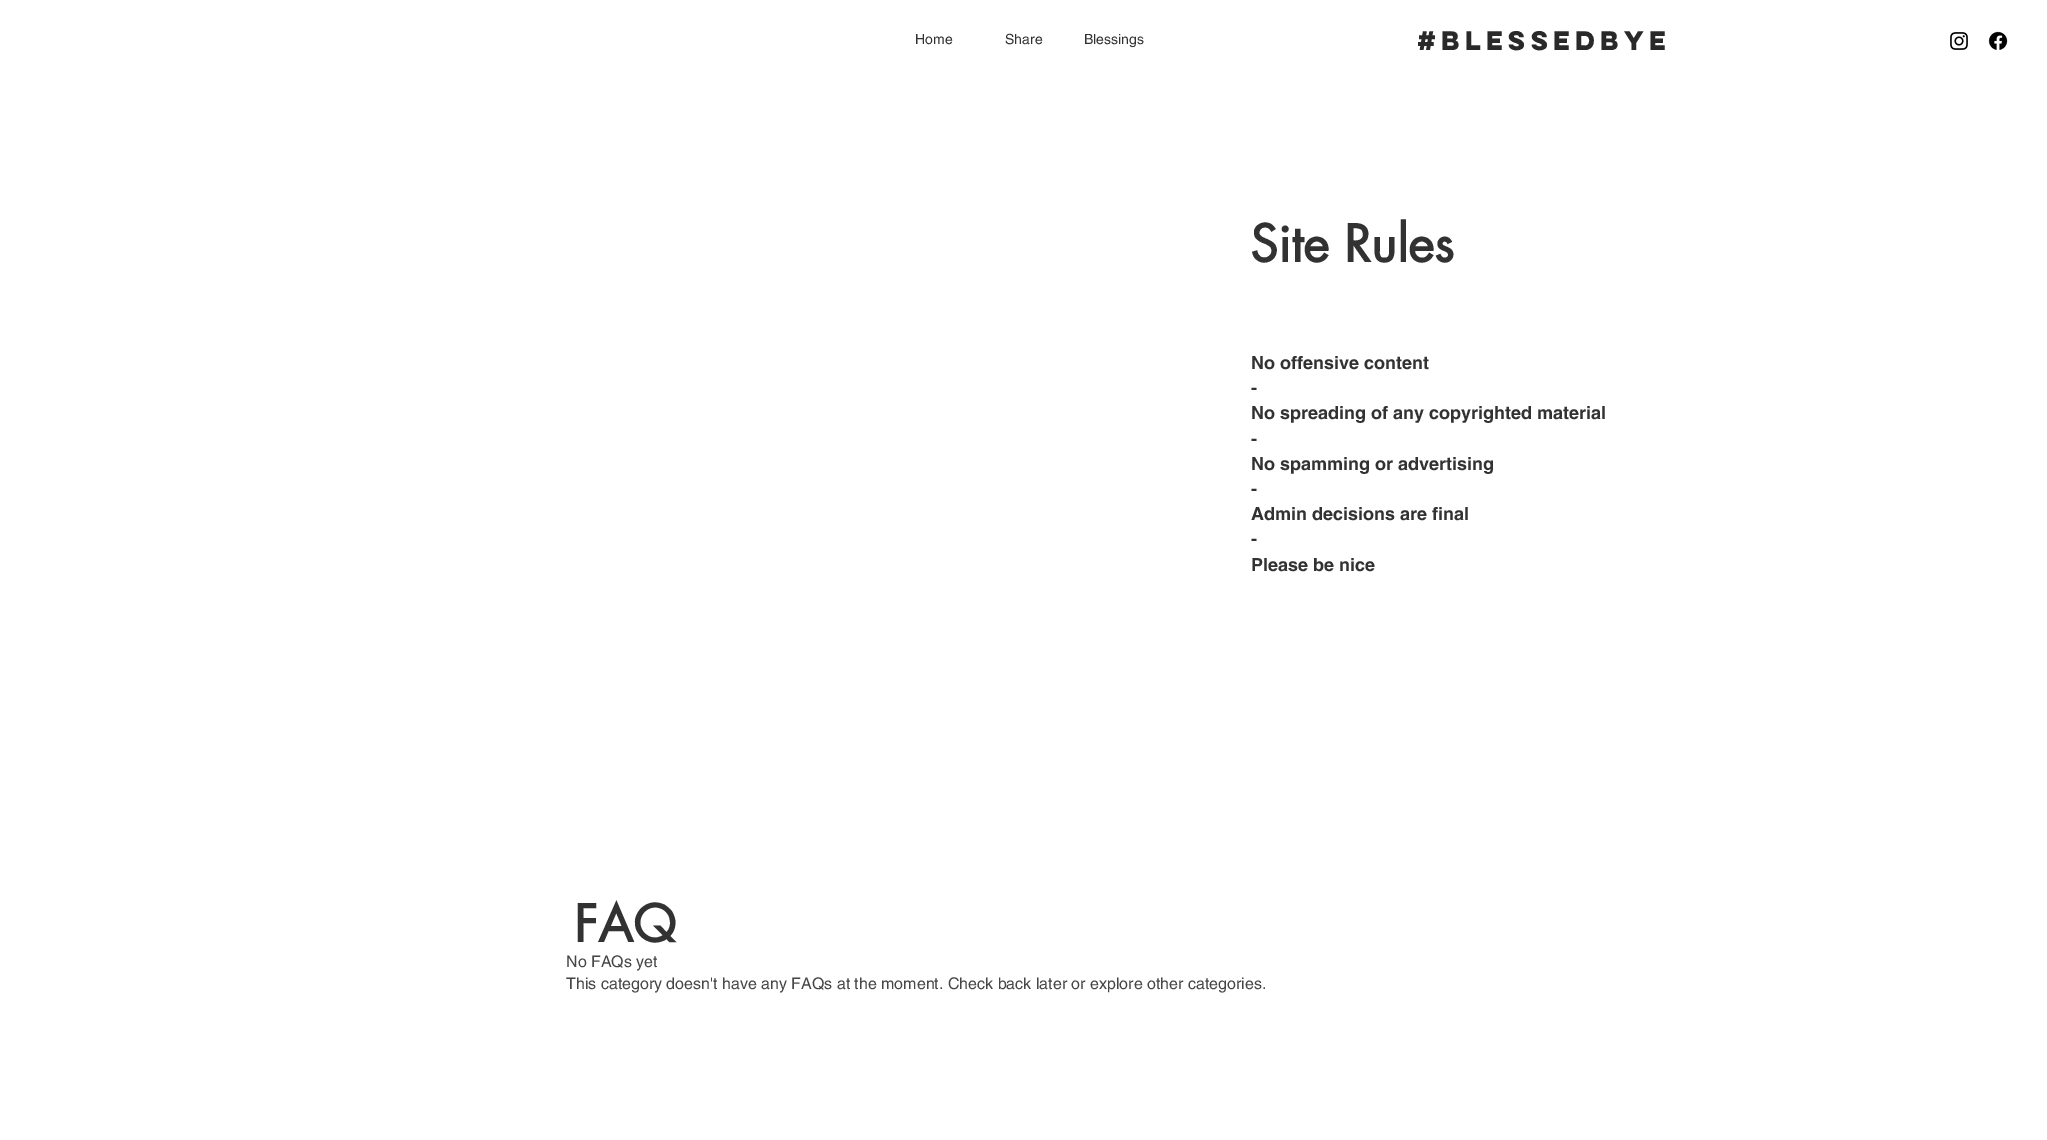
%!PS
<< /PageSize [2047 1140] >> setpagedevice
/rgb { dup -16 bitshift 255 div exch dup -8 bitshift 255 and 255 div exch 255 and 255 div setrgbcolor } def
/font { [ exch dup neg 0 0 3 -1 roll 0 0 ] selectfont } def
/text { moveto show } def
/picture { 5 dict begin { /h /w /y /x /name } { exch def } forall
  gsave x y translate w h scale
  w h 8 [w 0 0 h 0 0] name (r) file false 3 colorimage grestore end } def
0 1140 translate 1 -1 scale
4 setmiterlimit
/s1 { /helvetica-Regular 14 font 16#323232 rgb } def
/s2 { /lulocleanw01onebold-Bold 24 font 16#292929 rgb } def
/s3 { /futura-Bold 50 font 16#323232 rgb } def
/s4 { /helvetica-Bold 18 font 16#323232 rgb } def
/s5 { /helvetica-Regular 16 font 16#464646 rgb } def
16#FFFFFF rgb
0 0 2047 1140 rectfill
s1
(Home) 915 44 text
(Share) 1005 44 text
(Blessings) 1084 44 text
s2
(#blessedbye) 1417 50 text
(pic1.raw) 1950 32 18 18 picture
(pic2.raw) 1988 31 20 19 picture
s3
(Site Rules) 1250 262 text
s4
(No offensive content) 1251 369 text
(-) 1251 394 text
(No spreading of any copyrighted material) 1251 419 text
(-) 1251 445 text
(No spamming or advertising) 1251 470 text
(-) 1251 495 text
(Admin decisions are final) 1251 520 text
(-) 1251 545 text
(Please be nice) 1251 571 text
s3
(FAQ) 574 942 text
s5
(No FAQs yet) 566 967 text
(This category doesn't have any FAQs at the moment. Check back later or explore other categories.) 566 989 text
showpage
